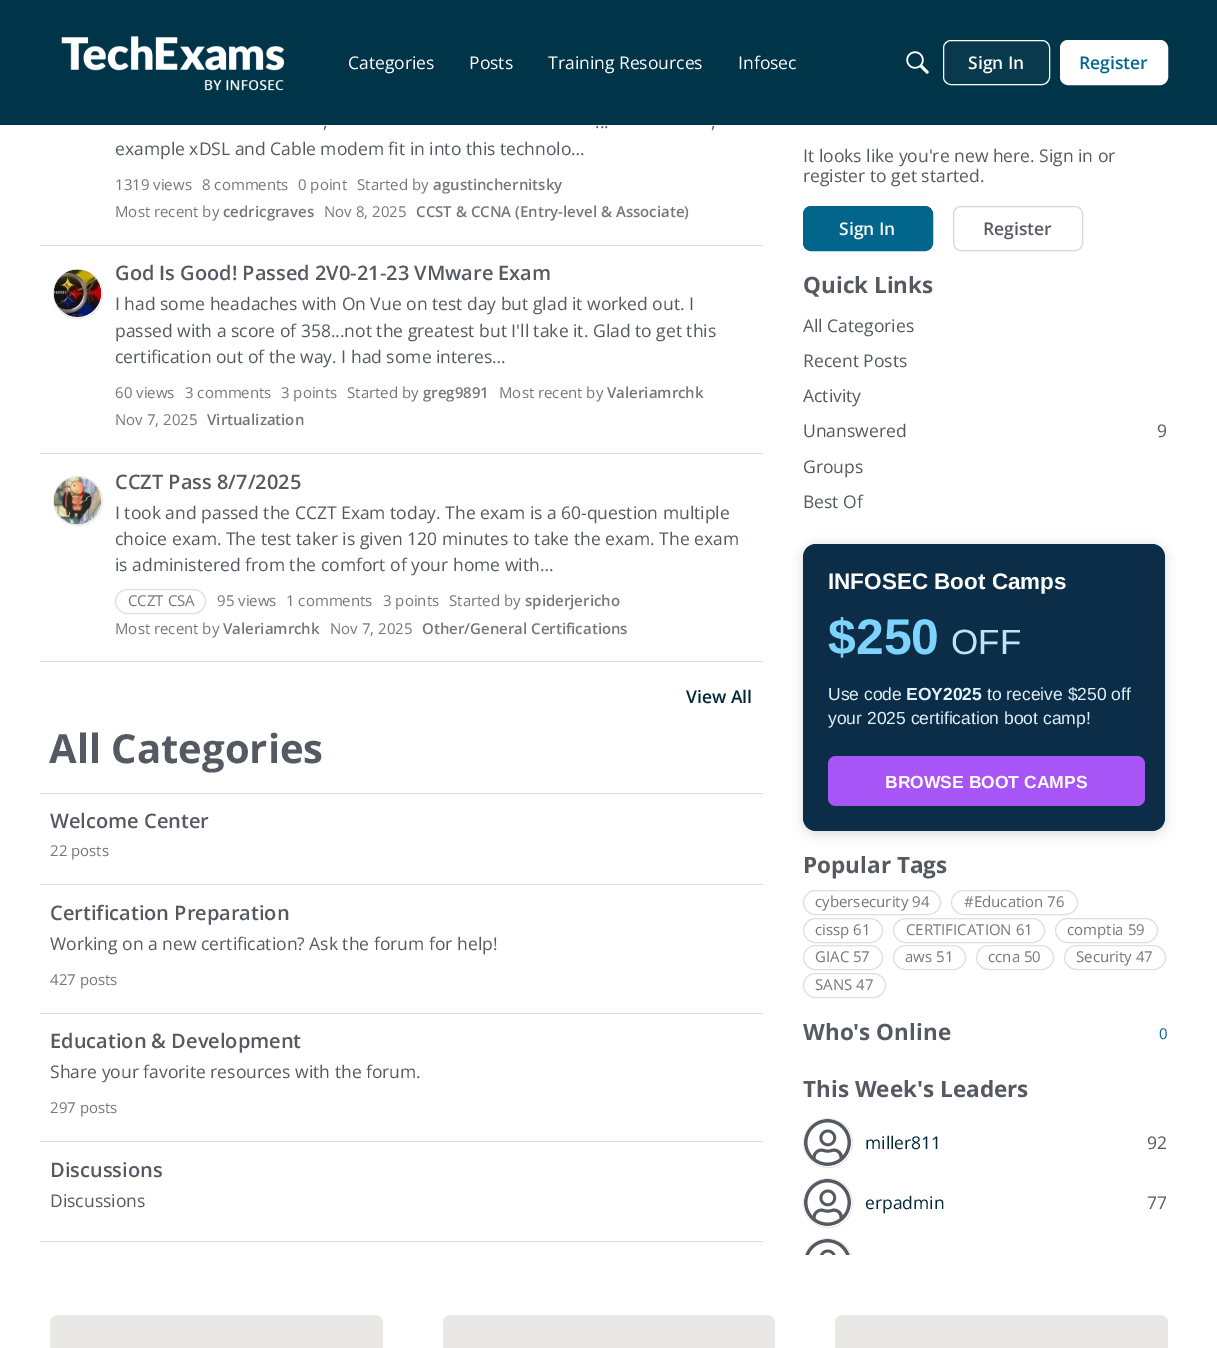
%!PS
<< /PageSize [1217 1348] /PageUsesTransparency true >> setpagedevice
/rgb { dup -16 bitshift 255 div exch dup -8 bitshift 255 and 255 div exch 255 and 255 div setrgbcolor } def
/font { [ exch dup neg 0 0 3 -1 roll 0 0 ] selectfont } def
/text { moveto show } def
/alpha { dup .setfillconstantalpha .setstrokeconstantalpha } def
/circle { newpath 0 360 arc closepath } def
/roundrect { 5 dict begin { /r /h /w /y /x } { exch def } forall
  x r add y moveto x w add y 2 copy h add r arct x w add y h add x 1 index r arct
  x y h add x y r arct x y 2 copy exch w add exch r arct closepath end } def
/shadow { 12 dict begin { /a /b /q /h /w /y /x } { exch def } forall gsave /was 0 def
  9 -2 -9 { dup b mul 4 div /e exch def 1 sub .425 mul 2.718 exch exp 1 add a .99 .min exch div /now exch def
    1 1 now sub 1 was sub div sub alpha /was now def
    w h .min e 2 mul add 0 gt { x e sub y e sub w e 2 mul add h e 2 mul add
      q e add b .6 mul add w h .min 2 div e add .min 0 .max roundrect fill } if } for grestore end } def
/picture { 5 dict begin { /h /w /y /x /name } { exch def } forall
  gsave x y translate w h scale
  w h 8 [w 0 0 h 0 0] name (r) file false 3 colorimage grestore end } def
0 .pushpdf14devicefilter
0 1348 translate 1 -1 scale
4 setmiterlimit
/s1 { /OpenSans-Regular 17.5 font 16#FFFFFF rgb } def
/s2 { /OpenSans-SemiBold 17.5 font 16#FFFFFF rgb } def
/s3 { /OpenSans-SemiBold 17.5 font 16#02658C rgb } def
/s4 { /OpenSans-Regular 17.5 font 16#555A62 rgb } def
/s5 { /OpenSans-Regular 15 font 16#767676 rgb } def
/s6 { /OpenSans-SemiBold 15 font 16#767676 rgb } def
/s7 { /OpenSans-SemiBold 20 font 16#555A62 rgb } def
/s8 { /OpenSans-SemiBold 17.5 font 16#012736 rgb } def
/s9 { /OpenSans-Bold 40 font 16#555A62 rgb } def
/s10 { /OpenSans-SemiBold 17.5 font 16#555A62 rgb } def
/s11 { /OpenSans-Bold 22.5 font 16#555A62 rgb } def
/s12 { /LiberationSans-Bold 22.5 font 16#FFFFFF rgb } def
/s13 { /LiberationSans-Bold 50 font 16#7DD3FC rgb } def
/s14 { /LiberationSans-Regular 35 font 16#BAE6FD rgb } def
/s15 { /LiberationSans-Regular 17.5 font 16#E0F2FE rgb } def
/s16 { /LiberationSans-Bold 17.5 font 16#E0F2FE rgb } def
/s17 { /LiberationSans-Bold 17.5 font 16#FFFFFF rgb } def
/s18 { /OpenSans-Regular 15 font 16#02658C rgb } def
/s19 { /OpenSans-Regular 17.5 font 16#012736 rgb } def
16#FFFFFF rgb
0 0 1217 1348 rectfill
16#003549 rgb
0 0 1217 125 rectfill
(pic1.raw) 61 36 224 55 picture
s1
(Categories) 348 69 text
(Posts) 469 69 text
(Training Resources) 548 69 text
(Infosec) 738 69 text
(pic2.raw) 906 51 23 23 picture
16#09394C rgb
943.5 40.5 106 44 7.5 roundrect gsave fill grestore
16#FFFFFF rgb
stroke
s2
(Sign In) 968 69 text
1060.5 40.5 107 44 7.5 roundrect gsave fill grestore
stroke
s3
(Register) 1079 69 text
s4
(,) 323 128 text
(...) 595 128 text
(,) 711 128 text
(example xDSL and Cable modem fit in into this technolo…) 115 155 text
s5
(1319 views) 115 190 text
(8 comments) 202 190 text
(0 point) 298 190 text
(Started by) 357 190 text
s6
(agustinchernitsky) 433 190 text
s5
(Most recent by) 115 217 text
s6
(cedricgraves) 223 217 text
s5
(Nov 8, 2025) 324 217 text
s6
(CCST & CCNA \(Entry-level & Associate\)) 416 217 text
16#DDDEE0 rgb
40 245 723 1 rectfill
16#E6E6E8 rgb
78 294 24.5 circle stroke
(pic3.raw) 53 269 49 48 picture
s7
(God Is Good! Passed 2V0-21-23 VMware Exam) 115 280 text
s4
(I had some headaches with On Vue on test day but glad it worked out. I) 115 310 text
(passed with a score of 358...not the greatest but I'll take it. Glad to get this) 115 337 text
(certification out of the way. I had some interes…) 115 363 text
s5
(60 views) 115 398 text
(3 comments) 185 398 text
(3 points) 281 398 text
(Started by) 347 398 text
s6
(greg9891) 423 398 text
s5
(Most recent by) 499 398 text
s6
(Valeriamrchk) 607 398 text
s5
(Nov 7, 2025) 115 425 text
s6
(Virtualization) 207 425 text
16#DDDEE0 rgb
40 453 723 1 rectfill
16#E6E6E8 rgb
78 501 24.5 circle stroke
(pic4.raw) 53 477 49 48 picture
s7
(CCZT Pass 8/7/2025) 115 489 text
s4
(I took and passed the CCZT Exam today. The exam is a 60-question multiple) 115 519 text
(choice exam. The test taker is given 120 minutes to take the exam. The exam) 115 545 text
(is administered from the comfort of your home with…) 115 571 text
16#DDDEE0 rgb
115.5 589.5 90 24 12 roundrect stroke
s5
(CCZT CSA) 128 606 text
(95 views) 217 606 text
(1 comments) 286 606 text
(3 points) 383 606 text
(Started by) 449 606 text
s6
(spiderjericho) 525 606 text
s5
(Most recent by) 115 634 text
s6
(Valeriamrchk) 223 634 text
s5
(Nov 7, 2025) 330 634 text
s6
(Other/General Certifications) 422 634 text
16#DDDEE0 rgb
40 661 723 1 rectfill
s8
(View All) 686 703 text
s9
(All Categories) 49 763 text
16#DDDEE0 rgb
40 793 723 1 rectfill
s7
(Welcome Center) 50 828 text
s5
(22 posts) 50 856 text
16#DDDEE0 rgb
40 884 723 1 rectfill
s7
(Certification Preparation) 50 920 text
s4
(Working on a new certification? Ask the forum for help!) 50 950 text
s5
(427 posts) 50 985 text
16#DDDEE0 rgb
40 1013 723 1 rectfill
s7
(Education & Development) 50 1048 text
s4
(Share your favorite resources with the forum.) 50 1078 text
s5
(297 posts) 50 1113 text
16#DDDEE0 rgb
40 1141 723 1 rectfill
s7
(Discussions) 50 1177 text
s4
(Discussions) 50 1207 text
16#DDDEE0 rgb
40 1241 723 1 rectfill
s4
(It looks like you're new here. Sign in or) 803 162 text
(register to get started.) 803 182 text
16#02658C rgb
803.5 206.5 129 44 7.5 roundrect gsave fill grestore
stroke
s2
(Sign In) 839 235 text
16#D6D7D9 rgb
953.5 206.5 129 44 7.5 roundrect stroke
s10
(Register) 983 235 text
s11
(Quick Links) 803 293 text
s4
(All Categories) 803 332 text
(Recent Posts) 803 367 text
(Activity) 803 402 text
(Unanswered) 803 437 text
(9) 1157 437 text
(Groups) 803 473 text
(Best Of) 803 508 text
16#000000 rgb
803 546 362 288 13 6 0.15 shadow
16#0B2D47 rgb
803 544 362 287 13 roundrect fill
s12
(INFOSEC Boot Camps) 828 589 text
s13
($250) 828 654 text
s14
(OFF) 951 654 text
s15
(Use code) 828 700 text
s16
(EOY2025) 906 700 text
s15
(to receive $250 off) 987 700 text
(your 2025 certification boot camp!) 828 724 text
16#A855F7 rgb
828 756 317 50 8 roundrect fill
s17
(BROWSE BOOT CAMPS) 885 788 text
s11
(Popular Tags) 803 873 text
16#DDDEE0 rgb
803.5 890.5 137 24 12 roundrect stroke
s5
(cybersecurity 94) 815 907 text
16#DDDEE0 rgb
951.5 890.5 126 24 12 roundrect stroke
s5
(#Education 76) 964 907 text
16#DDDEE0 rgb
803.5 918.5 79 24 12 roundrect stroke
s5
(cissp 61) 815 935 text
16#DDDEE0 rgb
893.5 918.5 151 24 12 roundrect stroke
s5
(CERTIFICATION 61) 906 935 text
16#DDDEE0 rgb
1055.5 918.5 102 24 12 roundrect stroke
s5
(comptia 59) 1067 935 text
16#DDDEE0 rgb
803.5 945.5 79 24 12 roundrect stroke
s5
(GIAC 57) 815 962 text
16#DDDEE0 rgb
893.5 945.5 72 24 12 roundrect stroke
s5
(aws 51) 905 962 text
16#DDDEE0 rgb
976.5 945.5 77 24 12 roundrect stroke
s5
(ccna 50) 988 962 text
16#DDDEE0 rgb
1064.5 945.5 101 24 12 roundrect stroke
s5
(Security 47) 1076 962 text
16#DDDEE0 rgb
803.5 973.5 82 24 12 roundrect stroke
s5
(SANS 47) 815 990 text
s11
(Who's Online) 803 1040 text
s18
(0) 1159 1039 text
s11
(This Week's Leaders) 803 1097 text
16#E6E6E8 rgb
828 1143 24.5 circle stroke
(pic5.raw) 804 1119 47 47 picture
s19
(miller811) 865 1149 text
s4
(92) 1147 1149 text
16#E6E6E8 rgb
828 1203 24.5 circle stroke
(pic5.raw) 804 1179 47 47 picture
s19
(erpadmin) 865 1209 text
s4
(77) 1147 1209 text
gsave
778 51 415 1204 rectclip
16#E6E6E8 rgb
828 1263 24.5 circle stroke
grestore
(pic6.raw) 805 1239 45 16 picture
16#EAE7E7 rgb
50 1315 333 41 8 roundrect fill
443 1315 332 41 8 roundrect fill
835 1315 333 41 8 roundrect fill
.poppdf14devicefilter showpage
